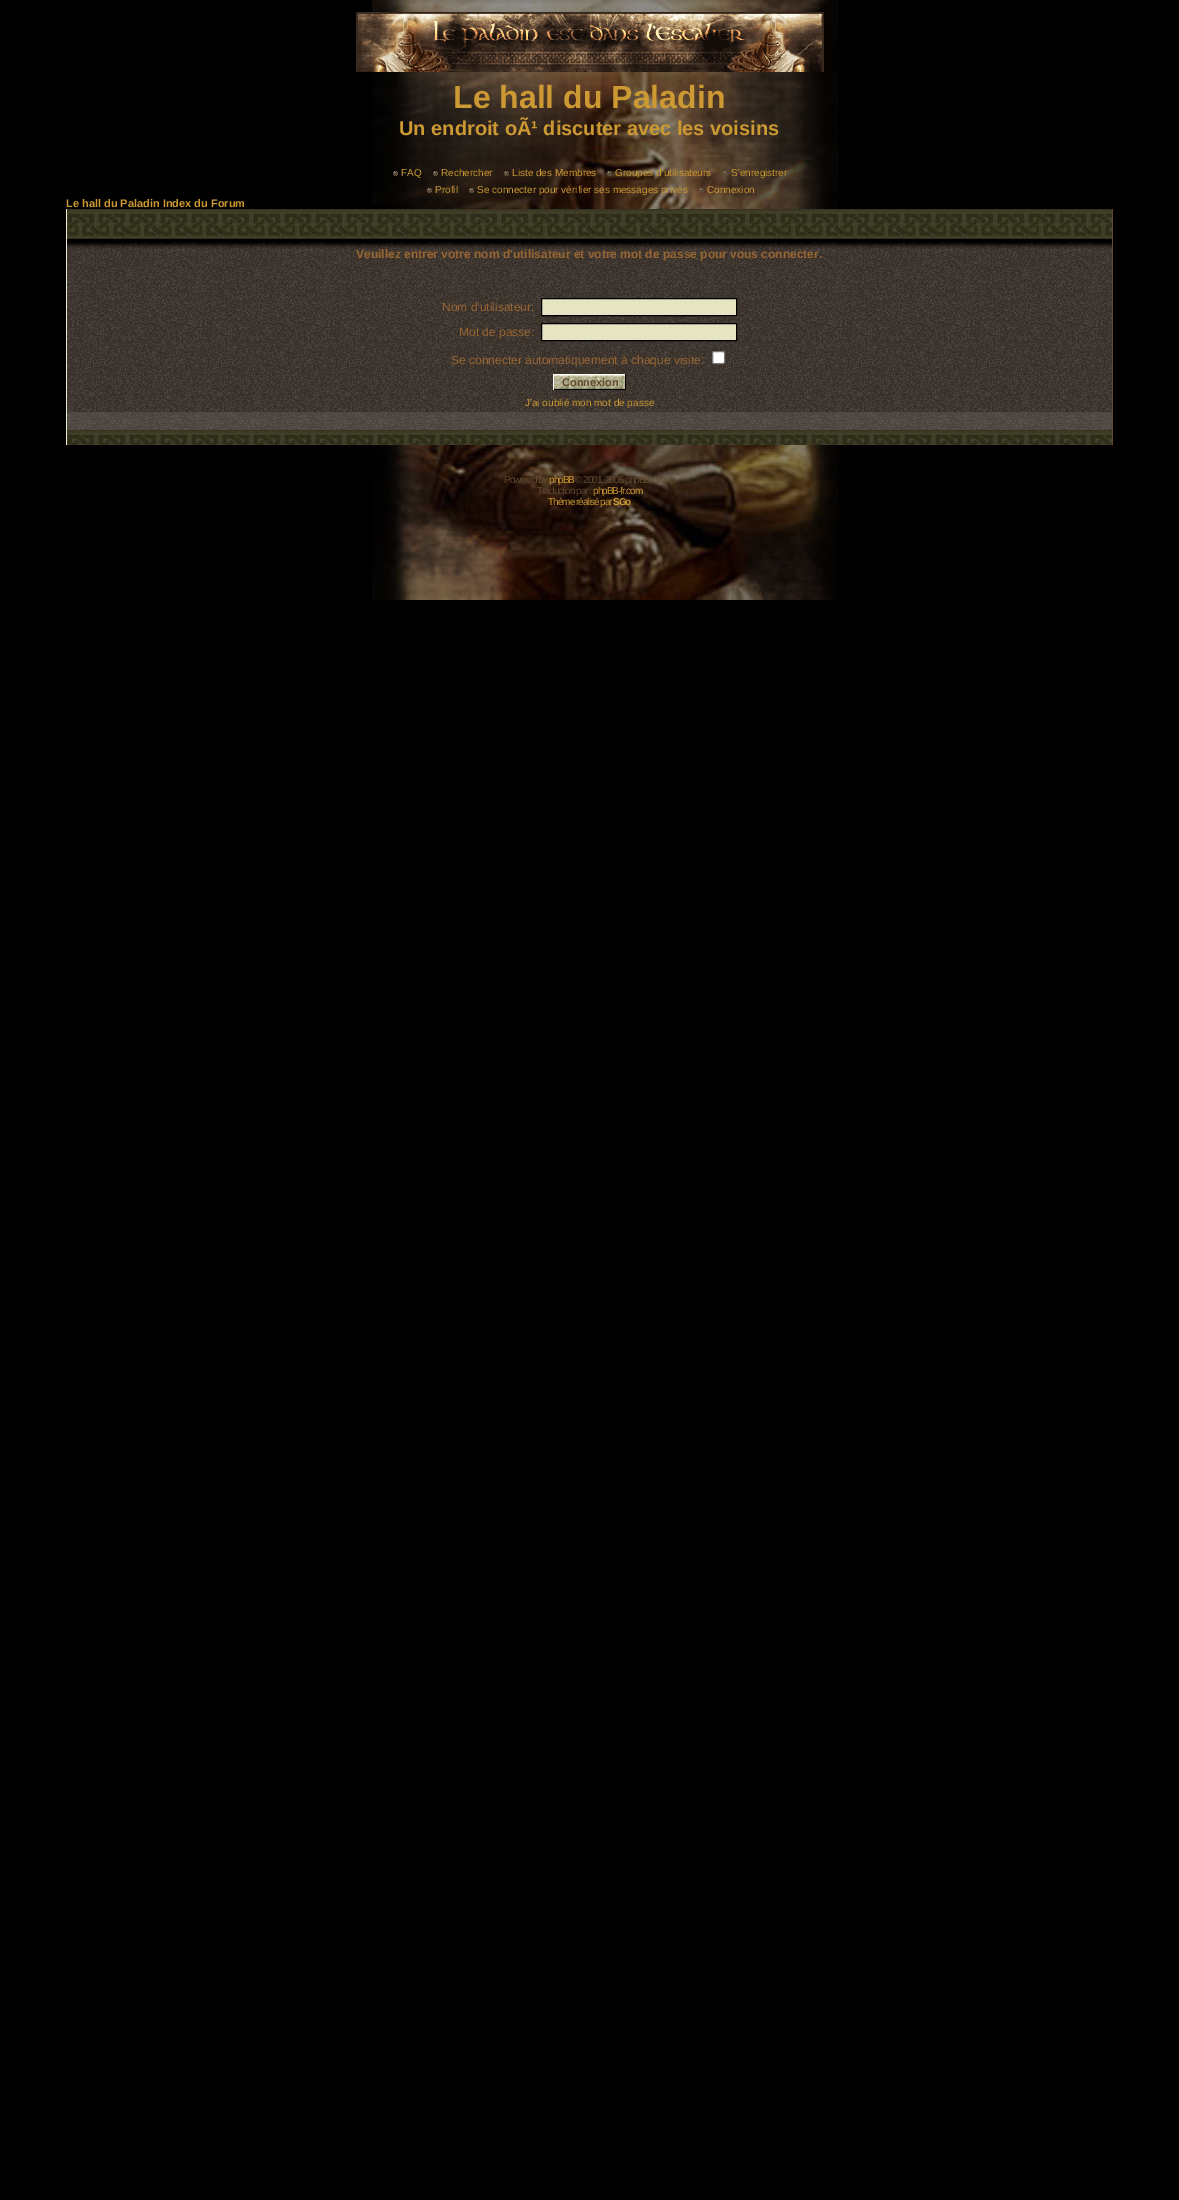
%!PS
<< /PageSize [1179 2200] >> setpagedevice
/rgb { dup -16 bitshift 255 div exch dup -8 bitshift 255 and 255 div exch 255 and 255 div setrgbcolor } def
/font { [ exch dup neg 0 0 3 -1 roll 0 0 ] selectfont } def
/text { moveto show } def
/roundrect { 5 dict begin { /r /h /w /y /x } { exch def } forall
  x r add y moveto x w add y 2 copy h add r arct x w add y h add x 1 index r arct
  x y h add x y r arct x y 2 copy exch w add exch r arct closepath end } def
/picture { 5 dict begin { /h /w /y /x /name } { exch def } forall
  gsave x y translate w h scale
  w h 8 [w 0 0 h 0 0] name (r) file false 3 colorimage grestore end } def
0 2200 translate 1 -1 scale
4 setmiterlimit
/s1 { /LiberationSans-Bold 32 font 16#CC9933 rgb } def
/s2 { /LiberationSans-Bold 20 font 16#CC9933 rgb } def
/s3 { /LiberationSans-Regular 10 font 16#CC9933 rgb } def
/s4 { /LiberationSans-Bold 11 font 16#CC9933 rgb } def
/s5 { /LiberationSans-Bold 12 font 16#996633 rgb } def
/s6 { /LiberationSans-Regular 12 font 16#996633 rgb } def
/s7 { /LiberationSans-Bold 11 font 16#61482F rgb } def
16#000000 rgb
0 0 1179 2200 rectfill
(pic1.raw) 372 0 467 600 picture
(pic2.raw) 356 12 468 60 picture
s1
(Le hall du Paladin) 453 108 text
s2
(Un endroit oÃ¹ discuter avec les voisins) 399 135 text
(pic3.raw) 393 171 5 5 picture
s3
(FAQ) 401 176 text
(pic4.raw) 433 171 5 5 picture
(Rechercher) 441 176 text
(pic5.raw) 504 171 5 5 picture
(Liste des Membres) 512 176 text
(pic6.raw) 607 171 5 5 picture
(Groupes d'utilisateurs) 615 176 text
(pic7.raw) 723 171 5 5 picture
(S'enregistrer) 731 176 text
(pic8.raw) 427 188 5 5 picture
(Profil) 435 193 text
(pic9.raw) 469 188 5 5 picture
(Se connecter pour vérifier ses messages privés) 477 193 text
(pic10.raw) 699 188 5 5 picture
(Connexion) 707 193 text
s4
(Le hall du Paladin Index du Forum) 66 207 text
16#61482F rgb
1112 209 1 236 rectfill
16#EBEBCF rgb
66 209 1 236 rectfill
(pic11.raw) 67 209 1045 30 picture
(pic12.raw) 67 239 1045 30 picture
s5
(Veuillez entrer votre nom d'utilisateur et votre mot de passe pour vous connecter.) 356 258 text
(pic13.raw) 67 269 1045 143 picture
s6
(Nom d'utilisateur:) 442 311 text
16#E5E5C3 rgb
541.5 298.5 moveto 736.5 298.5 lineto 736.5 315.5 lineto 541.5 315.5 lineto closepath gsave fill grestore
16#000000 rgb
stroke
s6
(Mot de passe:) 459 336 text
16#E5E5C3 rgb
541.5 323.5 moveto 736.5 323.5 lineto 736.5 340.5 lineto 541.5 340.5 lineto closepath gsave fill grestore
16#000000 rgb
stroke
s6
(Se connecter automatiquement à chaque visite:) 451 364 text
16#FFFFFF rgb
712.5 351.5 12 12 1.5 roundrect gsave fill grestore
16#767676 rgb
stroke
(pic14.raw) 554 375 71 14 picture
16#FFFFFF rgb
553 374 73 1 rectfill
16#000000 rgb
625 374 1 16 rectfill
553 389 73 1 rectfill
16#FFFFFF rgb
553 374 1 16 rectfill
s7
(Connexion) 562 386 text
s3
(J'ai oublié mon mot de passe) 525 406 text
(pic15.raw) 67 412 1045 18 picture
(pic16.raw) 67 430 1045 15 picture
16#61482F rgb
504 483 moveto -1 0 (Powered by) ashow
16#CC9933 rgb
549 483 moveto -1 0 (phpBB) ashow
16#61482F rgb
575 483 moveto -1 0 (© 2001, 2005 phpBB Group) ashow
537 494 moveto -1 0 (Traduction par :) ashow
16#CC9933 rgb
593 494 moveto -1 0 (phpBB-fr.com) ashow
548 505 moveto -1 0 (Thème réalisé par) ashow
/LiberationSans-Bold 10 font
613 505 moveto -1 0 (SGo) ashow
showpage
